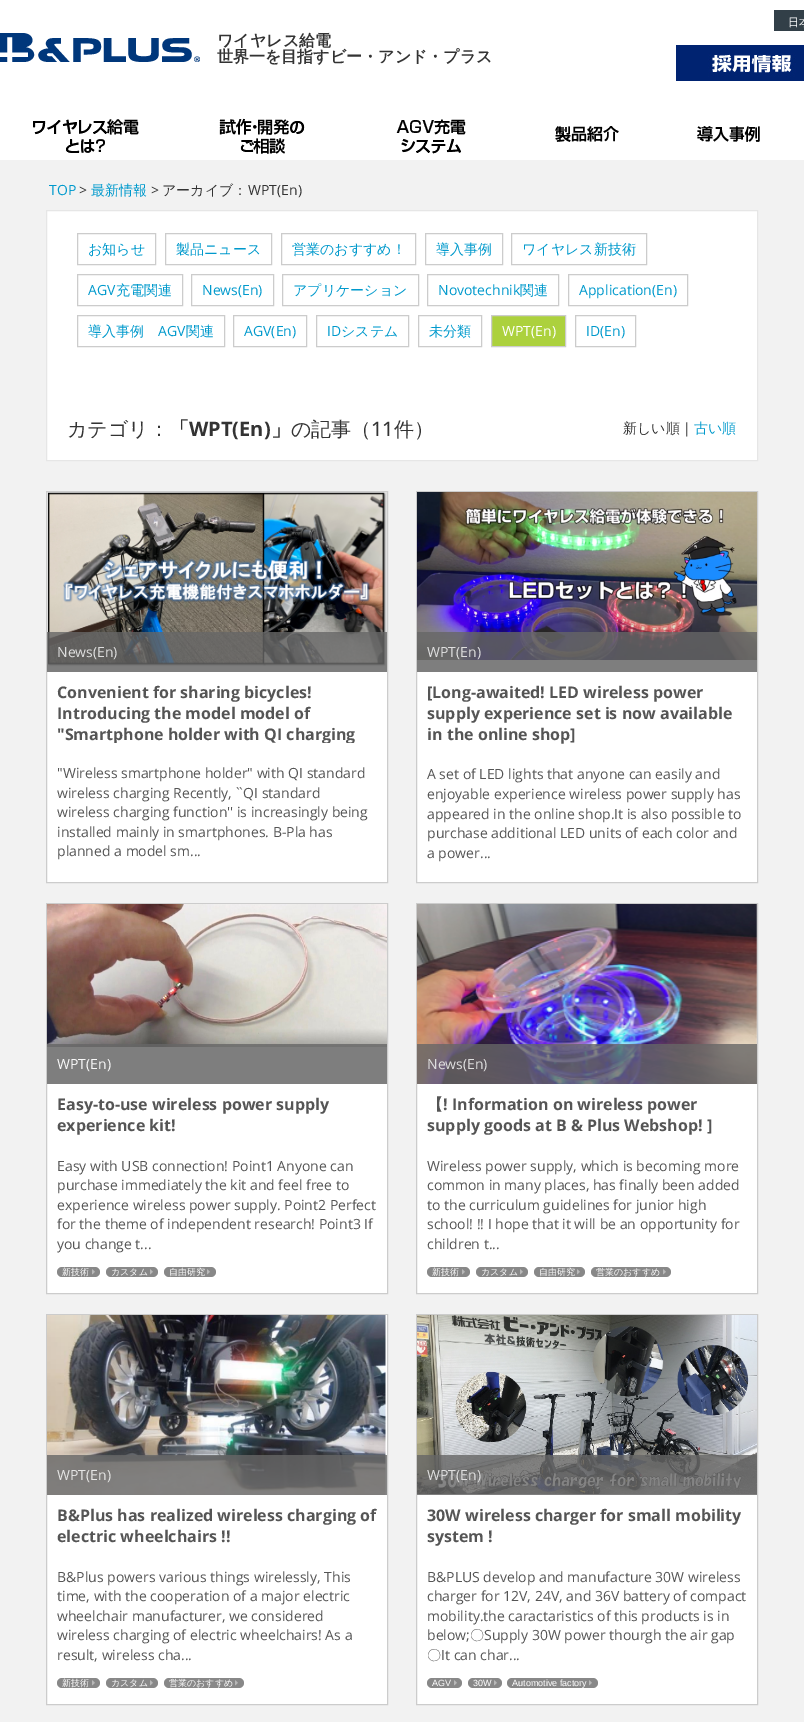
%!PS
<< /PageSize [804 1722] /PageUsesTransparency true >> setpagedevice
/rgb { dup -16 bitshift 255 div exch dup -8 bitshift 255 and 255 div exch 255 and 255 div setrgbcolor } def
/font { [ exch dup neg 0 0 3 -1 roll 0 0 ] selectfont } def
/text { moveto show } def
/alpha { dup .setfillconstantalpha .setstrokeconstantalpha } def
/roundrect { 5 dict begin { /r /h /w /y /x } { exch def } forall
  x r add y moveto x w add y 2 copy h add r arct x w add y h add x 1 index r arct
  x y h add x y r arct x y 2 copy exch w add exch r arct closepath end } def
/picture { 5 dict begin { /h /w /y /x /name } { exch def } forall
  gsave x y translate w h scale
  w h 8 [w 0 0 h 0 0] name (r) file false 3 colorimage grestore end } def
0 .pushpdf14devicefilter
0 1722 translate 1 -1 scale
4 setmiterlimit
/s1 { /WenQuanYiZenHei-Medium 11 font 16#FFFFFF rgb } def
/s2 { /WenQuanYiZenHei-Bold 16 font 16#333333 rgb } def
/s3 { /OpenSans-Regular 14 font 16#0099CC rgb } def
/s4 { /OpenSans-Regular 14 font 16#333333 rgb } def
/s5 { /WenQuanYiZenHei-Medium 14 font 16#0099CC rgb } def
/s6 { /WenQuanYiZenHei-Medium 14 font 16#333333 rgb } def
/s7 { /OpenSans-Regular 14 font 16#FFFFFF rgb } def
/s8 { /WenQuanYiZenHei-Medium 20 font 16#333333 rgb } def
/s9 { /WenQuanYiZenHei-Bold 20 font 16#333333 rgb } def
/s10 { /OpenSans-Bold 20 font 16#333333 rgb } def
/s11 { /OpenSans-Medium 20 font 16#333333 rgb } def
/s12 { /OpenSans-Regular 14 font 16#DFDFDF rgb } def
/s13 { /OpenSans-Bold 16 font 16#555555 rgb } def
/s14 { /OpenSans-Regular 14 font 16#555555 rgb } def
/s15 { /OpenSans-Regular 14 font 16#F9F9F9 rgb } def
/s16 { /WenQuanYiZenHei-Medium 9 font 16#FFFFFF rgb } def
/s17 { /WenQuanYiZenHei-Bold 16 font 16#555555 rgb } def
/s18 { /OpenSans-Regular 14 font 16#E5E5E4 rgb } def
/s19 { /WenQuanYiZenHei-Medium 14 font 16#555555 rgb } def
/s20 { /LiberationSans-Regular 9 font 16#FFFFFF rgb } def
16#F2F2F2 rgb
0 0 804 1722 rectfill
16#FFFFFF rgb
0 0 804 160 rectfill
16#323F48 rgb
774 10 30 21 rectfill
s1
(日本) 788 26 text
(pic1.raw) 0 33 200 29 picture
s2
(ワイヤレス給電) 217 46 text
(世界一を目指すビー・アンド・プラス) 217 62 text
(pic2.raw) 676 45 128 36 picture
(pic3.raw) 33 119 106 34 picture
(pic4.raw) 219 118 86 36 picture
(pic5.raw) 396 119 70 35 picture
(pic6.raw) 555 126 64 16 picture
(pic7.raw) 697 126 63 16 picture
s3
(TOP) 49 195 text
s4
(>) 79 195 text
s5
(最新情報) 91 195 text
s4
(>) 151 195 text
s6
(アーカイブ：) 162 195 text
s4
(WPT\(En\)) 248 195 text
16#FFFFFF rgb
46.5 210.5 moveto 757.5 210.5 lineto 757.5 460.5 lineto 46.5 460.5 lineto closepath gsave fill grestore
16#E6E6E6 rgb
stroke
16#CCCCCC rgb
77.5 233.5 78 31 rectstroke
s5
(お知らせ) 88 254 text
16#CCCCCC rgb
165.5 233.5 106 31 rectstroke
s5
(製品ニュース) 176 254 text
16#CCCCCC rgb
281.5 233.5 134 31 rectstroke
s5
(営業のおすすめ！) 292 254 text
16#CCCCCC rgb
425.5 233.5 77 31 rectstroke
s5
(導入事例) 436 254 text
16#CCCCCC rgb
511.5 233.5 135 31 rectstroke
s5
(ワイヤレス新技術) 522 254 text
16#CCCCCC rgb
77.5 274.5 105 31 rectstroke
s3
(AGV) 88 295 text
s5
(充電関連) 116 295 text
16#CCCCCC rgb
191.5 274.5 82 31 rectstroke
s3
(News\(En\)) 202 295 text
16#CCCCCC rgb
282.5 274.5 136 31 rectstroke
s5
(アプリケーション) 293 295 text
16#CCCCCC rgb
427.5 274.5 131 31 rectstroke
s3
(Novotechnik) 438 295 text
s5
(関連) 520 295 text
16#CCCCCC rgb
568.5 274.5 119 31 rectstroke
s3
(Application\(En\)) 579 295 text
16#CCCCCC rgb
77.5 315.5 147 31 rectstroke
s5
(導入事例) 88 336 text
s3
(AGV) 158 336 text
s5
(関連) 186 336 text
16#CCCCCC rgb
233.5 315.5 73 31 rectstroke
s3
(AGV\(En\)) 244 336 text
16#CCCCCC rgb
316.5 315.5 92 31 rectstroke
s3
(ID) 327 336 text
s5
(システム) 341 336 text
16#CCCCCC rgb
418.5 315.5 63 31 rectstroke
s5
(未分類) 429 336 text
16#ACD13D rgb
491.5 315.5 moveto 565.5 315.5 lineto 565.5 346.5 lineto 491.5 346.5 lineto closepath gsave fill grestore
16#CCCCCC rgb
stroke
s7
(WPT\(En\)) 502 336 text
16#CCCCCC rgb
575.5 315.5 60 31 rectstroke
s3
(ID\(En\)) 586 336 text
s8
(カテゴリ：) 67 436 text
s9
(「) 169 436 text
s10
(WPT\(En\)) 189 436 text
s9
(」) 271 436 text
s8
(の記事（) 291 436 text
s11
(11) 371 436 text
s8
(件）) 394 436 text
s6
(新しい順) 623 433 text
s4
(|) 683 433 text
s5
(古い順) 694 433 text
16#FFFFFF rgb
47 672 340 210 rectfill
16#CCCCCC rgb
46.5 491.5 341 391 rectstroke
16#DFDFDF rgb
47 492 340 180 rectfill
(pic8.raw) 48 492 338 175 picture
0.8 alpha
16#666666 rgb
47 632 340 40 rectfill
1 alpha
s12
(News\(En\)) 57 657 text
s13
(Convenient for sharing bicycles!) 57 698 text
(Introducing the model model of) 57 719 text
gsave
57 682 320 61 rectclip
("Smartphone holder with QI charging) 57 740 text
grestore
s14
("Wireless smartphone holder" with QI standard) 57 778 text
(wireless charging Recently, ``QI standard) 57 798 text
(wireless charging function'' is increasingly being) 57 817 text
(installed mainly in smartphones. B-Pla has) 57 837 text
(planned a model sm...) 57 856 text
16#FFFFFF rgb
417 672 340 210 rectfill
16#CCCCCC rgb
416.5 491.5 341 391 rectstroke
16#DFDFDF rgb
417 660 340 12 rectfill
(pic9.raw) 417 492 340 168 picture
0.8 alpha
16#666666 rgb
417 632 340 40 rectfill
1 alpha
s12
(WPT\(En\)) 427 657 text
s13
([Long-awaited! LED wireless power) 427 698 text
(supply experience set is now available) 427 719 text
(in the online shop]) 427 740 text
s14
(A set of LED lights that anyone can easily and) 427 779 text
(enjoyable experience wireless power supply has) 427 799 text
(appeared in the online shop.It is also possible to) 427 819 text
(purchase additional LED units of each color and) 427 838 text
(a power...) 427 858 text
16#FFFFFF rgb
47 1084 340 209 rectfill
16#CCCCCC rgb
46.5 903.5 341 390 rectstroke
16#DFDFDF rgb
47 1047 340 37 rectfill
(pic10.raw) 47 904 340 143 picture
0.8 alpha
16#666666 rgb
47 1044 340 40 rectfill
1 alpha
s15
(WPT\(En\)) 57 1069 text
s13
(Easy-to-use wireless power supply) 57 1110 text
(experience kit!) 57 1131 text
s14
(Easy with USB connection! Point1 Anyone can) 57 1171 text
(purchase immediately the kit and feel free to) 57 1190 text
(experience wireless power supply. Point2 Perfect) 57 1210 text
(for the theme of independent research! Point3 If) 57 1229 text
(you change t...) 57 1249 text
16#888888 rgb
57 1267 43 10 5 roundrect fill
s16
(新技術) 62 1275 text
(pic11.raw) 92 1269 3 6 picture
16#888888 rgb
106 1267 52 10 5 roundrect fill
s16
(カスタム) 111 1275 text
(pic11.raw) 150 1269 3 6 picture
16#888888 rgb
164 1267 52 10 5 roundrect fill
s16
(自由研究) 169 1275 text
(pic11.raw) 207 1269 3 6 picture
416.5 903.5 moveto 757.5 903.5 lineto 757.5 1293.5 lineto 416.5 1293.5 lineto closepath gsave fill grestore
16#CCCCCC rgb
stroke
(pic12.raw) 417 904 340 180 picture
0.8 alpha
16#666666 rgb
417 1044 340 40 rectfill
1 alpha
s12
(News\(En\)) 427 1069 text
s17
(【) 427 1110 text
s13
(! Information on wireless power) 443 1110 text
(supply goods at B & Plus Webshop! ]) 427 1131 text
s14
(Wireless power supply, which is becoming more) 427 1171 text
(common in many places, has finally been added) 427 1190 text
(to the curriculum guidelines for junior high) 427 1210 text
(school! !! I hope that it will be an opportunity for) 427 1229 text
(children t...) 427 1249 text
16#888888 rgb
427 1267 43 10 5 roundrect fill
s16
(新技術) 432 1275 text
(pic11.raw) 462 1269 3 6 picture
16#888888 rgb
476 1267 52 10 5 roundrect fill
s16
(カスタム) 481 1275 text
(pic11.raw) 520 1269 3 6 picture
16#888888 rgb
534 1267 51 10 5 roundrect fill
s16
(自由研究) 539 1275 text
(pic11.raw) 577 1269 3 6 picture
16#888888 rgb
591 1267 80 10 5 roundrect fill
s16
(営業のおすすめ) 596 1275 text
(pic11.raw) 663 1269 3 6 picture
47 1495 340 209 rectfill
16#CCCCCC rgb
46.5 1314.5 341 390 rectstroke
(pic13.raw) 47 1315 340 180 picture
0.8 alpha
16#666666 rgb
47 1455 340 40 rectfill
1 alpha
s18
(WPT\(En\)) 57 1480 text
s13
(B&Plus has realized wireless charging of) 57 1521 text
(electric wheelchairs !!) 57 1542 text
s14
(B&Plus powers various things wirelessly, This) 57 1582 text
(time, with the cooperation of a major electric) 57 1601 text
(wheelchair manufacturer, we considered) 57 1621 text
(wireless charging of electric wheelchairs! As a) 57 1640 text
(result, wireless cha...) 57 1660 text
16#888888 rgb
57 1678 43 10 5 roundrect fill
s16
(新技術) 62 1686 text
(pic11.raw) 92 1680 3 6 picture
16#888888 rgb
106 1678 52 10 5 roundrect fill
s16
(カスタム) 111 1686 text
(pic11.raw) 150 1680 3 6 picture
16#888888 rgb
164 1678 80 10 5 roundrect fill
s16
(営業のおすすめ) 169 1686 text
(pic11.raw) 235 1680 3 6 picture
417 1495 340 209 rectfill
16#CCCCCC rgb
416.5 1314.5 341 390 rectstroke
16#DFDFDF rgb
417 1494 340 1 rectfill
(pic14.raw) 417 1315 340 179 picture
0.8 alpha
16#666666 rgb
417 1455 340 40 rectfill
1 alpha
s12
(WPT\(En\)) 427 1480 text
s13
(30W wireless charger for small mobility) 427 1521 text
(system !) 427 1542 text
s14
(B&PLUS develop and manufacture 30W wireless) 427 1582 text
(charger for 12V, 24V, and 36V battery of compact) 427 1601 text
(mobility.the caractaristics of this products is in) 427 1621 text
(below;) 427 1640 text
s19
(〇) 470 1640 text
s14
(Supply 30W power thourgh the air gap) 484 1640 text
s19
(〇) 427 1660 text
s14
(It can char...) 441 1660 text
16#888888 rgb
427 1678 35 10 5 roundrect fill
s20
(AGV) 432 1686 text
(pic11.raw) 454 1680 3 6 picture
16#888888 rgb
468 1678 34 10 5 roundrect fill
s20
(30W) 473 1686 text
(pic11.raw) 494 1680 3 6 picture
16#888888 rgb
507 1678 91 10 5 roundrect fill
s20
(Automotive factory) 512 1686 text
(pic11.raw) 589 1680 3 6 picture
.poppdf14devicefilter showpage
